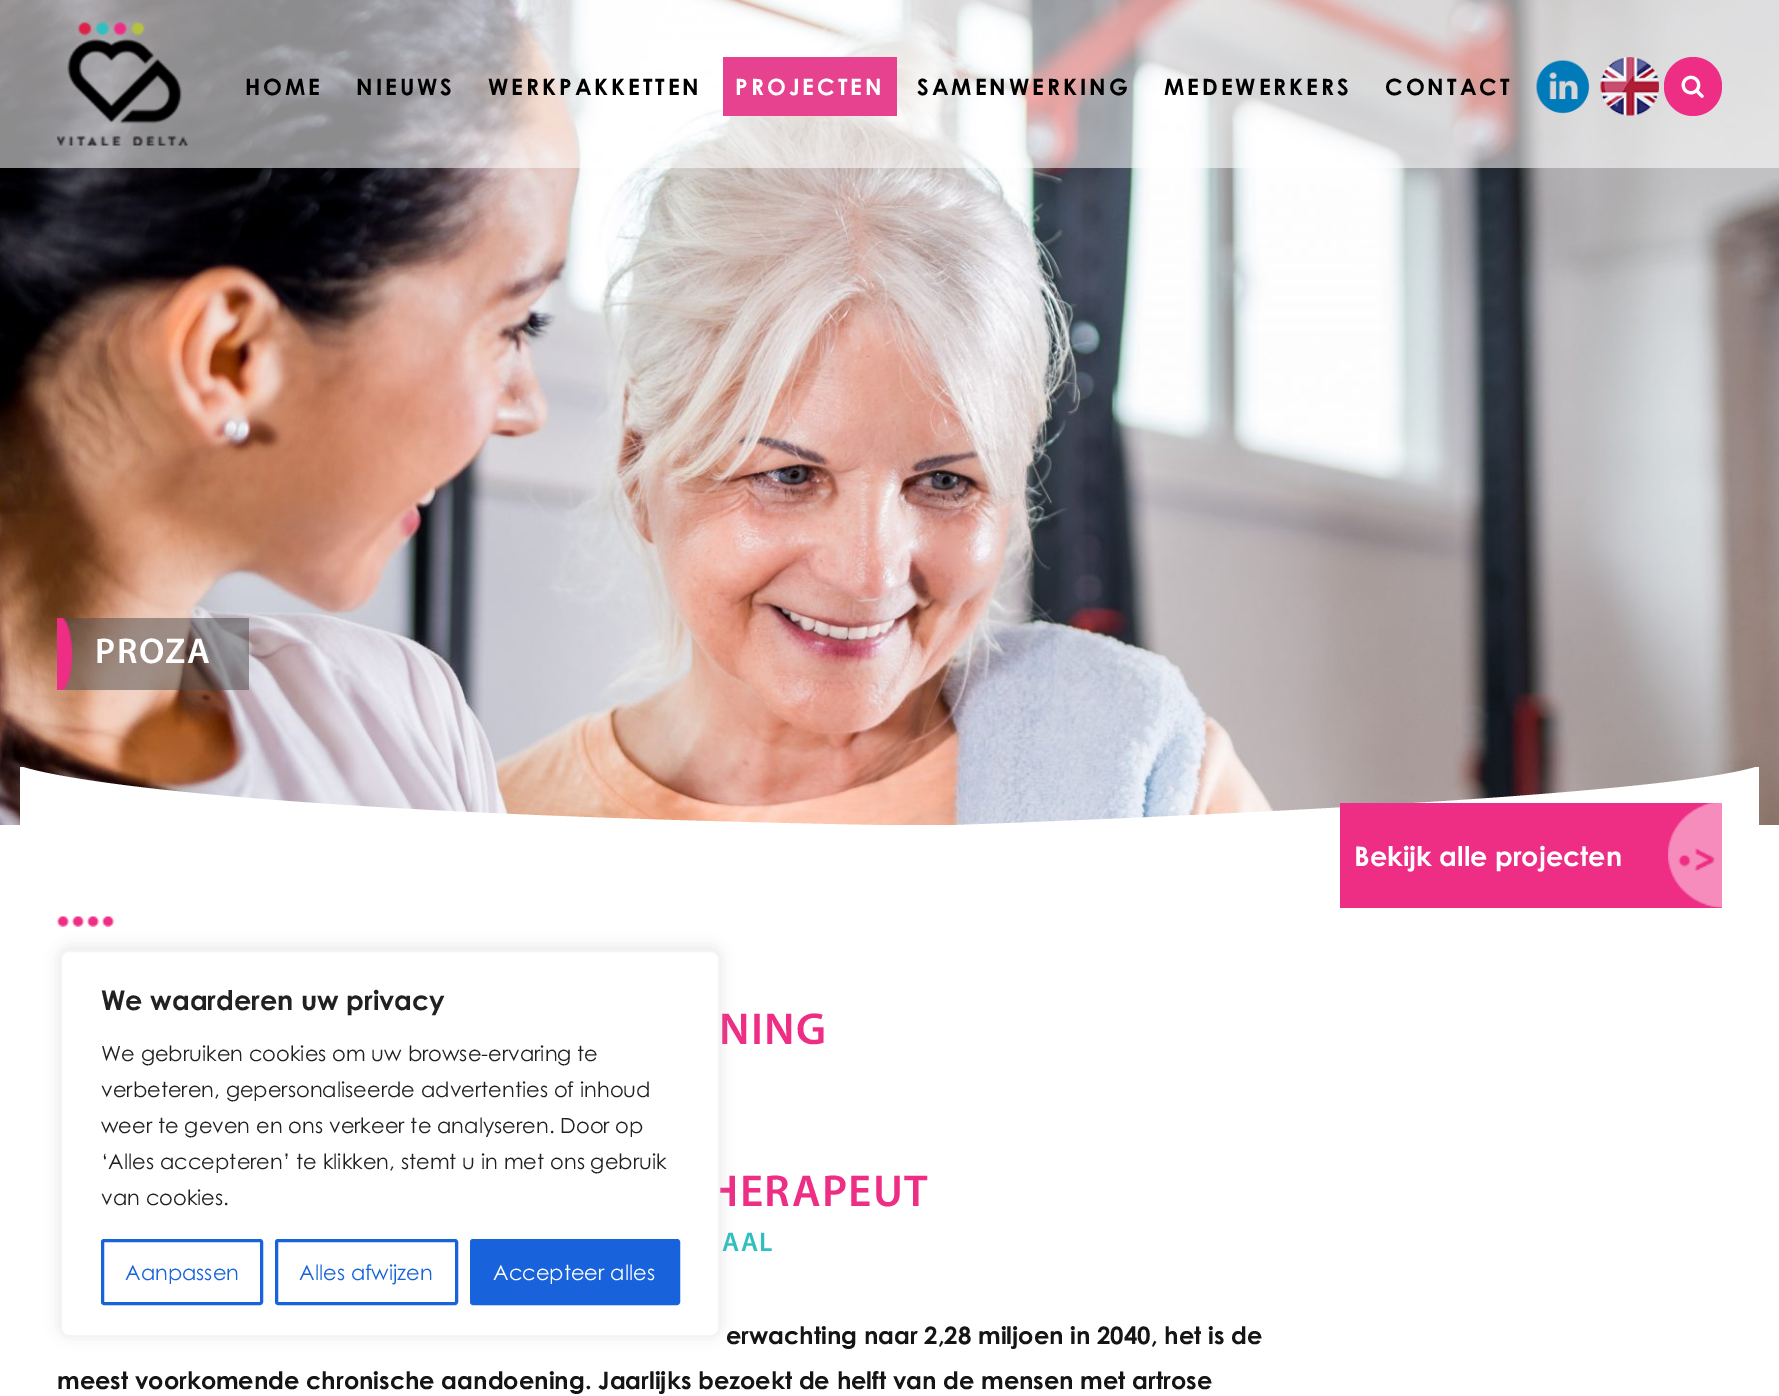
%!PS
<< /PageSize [1779 1396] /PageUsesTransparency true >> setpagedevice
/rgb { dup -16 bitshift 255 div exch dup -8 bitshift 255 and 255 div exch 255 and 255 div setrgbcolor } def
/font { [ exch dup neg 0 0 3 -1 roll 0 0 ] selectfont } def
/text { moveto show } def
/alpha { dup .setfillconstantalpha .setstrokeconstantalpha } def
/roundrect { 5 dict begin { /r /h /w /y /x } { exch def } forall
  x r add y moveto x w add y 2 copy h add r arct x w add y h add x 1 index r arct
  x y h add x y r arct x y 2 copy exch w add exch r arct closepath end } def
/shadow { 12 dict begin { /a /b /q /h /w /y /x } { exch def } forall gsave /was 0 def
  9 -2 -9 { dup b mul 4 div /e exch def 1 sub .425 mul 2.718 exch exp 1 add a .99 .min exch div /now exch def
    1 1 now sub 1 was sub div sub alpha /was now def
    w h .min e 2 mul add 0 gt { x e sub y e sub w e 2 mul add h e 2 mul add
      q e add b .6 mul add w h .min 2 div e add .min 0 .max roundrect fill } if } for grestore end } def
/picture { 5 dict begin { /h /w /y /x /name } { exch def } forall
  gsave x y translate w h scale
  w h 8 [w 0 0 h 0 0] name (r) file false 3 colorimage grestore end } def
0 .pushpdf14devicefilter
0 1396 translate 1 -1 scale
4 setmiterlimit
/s1 { /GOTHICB-Bold 27 font 16#FFFFFF rgb } def
/s2 { /GOTHICB-Bold 24 font 16#151515 rgb } def
/s3 { /GOTHICB-Bold 27 font 16#212121 rgb } def
/s4 { /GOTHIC-Regular 21 font 16#212121 rgb } def
/s5 { /GOTHIC-Regular 21 font 16#1863DC rgb } def
/s6 { /GOTHIC-Regular 21 font 16#FFFFFF rgb } def
16#FFFFFF rgb
0 0 1779 1396 rectfill
(pic5.raw) 0 0 1779 825 picture
0.55 alpha
0 0 1779 168 rectfill
1 alpha
(pic1.raw) 57 22 131 124 picture
/GOTHICB-Bold 22.5 font
16#000000 rgb
245 95 moveto 3 0 (HOME) ashow
356 95 moveto 3 0 (NIEUWS) ashow
488 95 moveto 3 0 (WERKPAKKETTEN) ashow
16#E7428F rgb
723 57 174 59 rectfill
16#FFFFFF rgb
735 95 moveto 3 0 (PROJECTEN) ashow
16#000000 rgb
917 95 moveto 3 0 (SAMENWERKING) ashow
1164 95 moveto 3 0 (MEDEWERKERS) ashow
1385 95 moveto 3 0 (CONTACT) ashow
(pic2.raw) 1535 59 55 55 picture
(pic3.raw) 1600 57 59 59 picture
16#EE2D85 rgb
1664 57 58 59 29 roundrect fill
(pic4.raw) 1681 75 23 23 picture
0.5 alpha
16#4B4B4B rgb
61 618 188 72 rectfill
1 alpha
(pic6.raw) 57 618 15 72 picture
/Myriad-SemiBold 36 font
16#FFFFFF rgb
95 663 moveto 1.5 0 (PROZA) ashow
gsave
0 767 1779 60 rectclip
20 766 moveto 20 766 132 813 929 826 curveto 929 826 1651 802 1759 766 curveto 1759 826 lineto 20 826 lineto closepath fill
grestore
16#EE2D85 rgb
1340 803 382 105 rectfill
(pic7.raw) 1668 803 54 105 picture
s1
(Bekijk alle projecten) 1354 866 text
(pic8.raw) 57 916 57 11 picture
/Myriad-SemiBold 45 font
16#EE2D85 rgb
719 1044 moveto 1.5 0 (NING) ashow
708 1206 moveto 1.5 0 (HERAPEUT) ashow
/Myriad-SemiBold 27 font
16#30BEC0 rgb
722 1251 moveto 1.5 0 (AAL) ashow
s2
(erwachting naar 2,28 miljoen in 2040, het is de) 726 1344 text
(meest voorkomende chronische aandoening. Jaarlijks bezoekt de helft van de mensen met artrose) 57 1389 text
16#ACABAB rgb
60 948 660 387 9 7.5 0.3 shadow
16#FFFFFF rgb
61 951 658 385 8 roundrect gsave fill grestore
16#F4F4F4 rgb
2 setlinewidth
stroke
s3
(We waarderen uw privacy) 101 1010 text
s4
(We gebruiken cookies om uw browse-ervaring te) 101 1061 text
(verbeteren, gepersonaliseerde advertenties of inhoud) 101 1097 text
(weer te geven en ons verkeer te analyseren. Door op) 101 1133 text
(‘Alles accepteren’ te klikken, stemt u in met ons gebruik) 101 1169 text
(van cookies.) 101 1205 text
16#1863DC rgb
3 setlinewidth
102.5 1240.5 159 63 1.5 roundrect stroke
(Aanpassen) 125 1280 text
276.5 1240.5 180 63 1.5 roundrect stroke
(Alles afwijzen) 299 1280 text
471.5 1240.5 207 63 1.5 roundrect gsave fill grestore
stroke
s6
(Accepteer alles) 493 1280 text
.poppdf14devicefilter showpage
